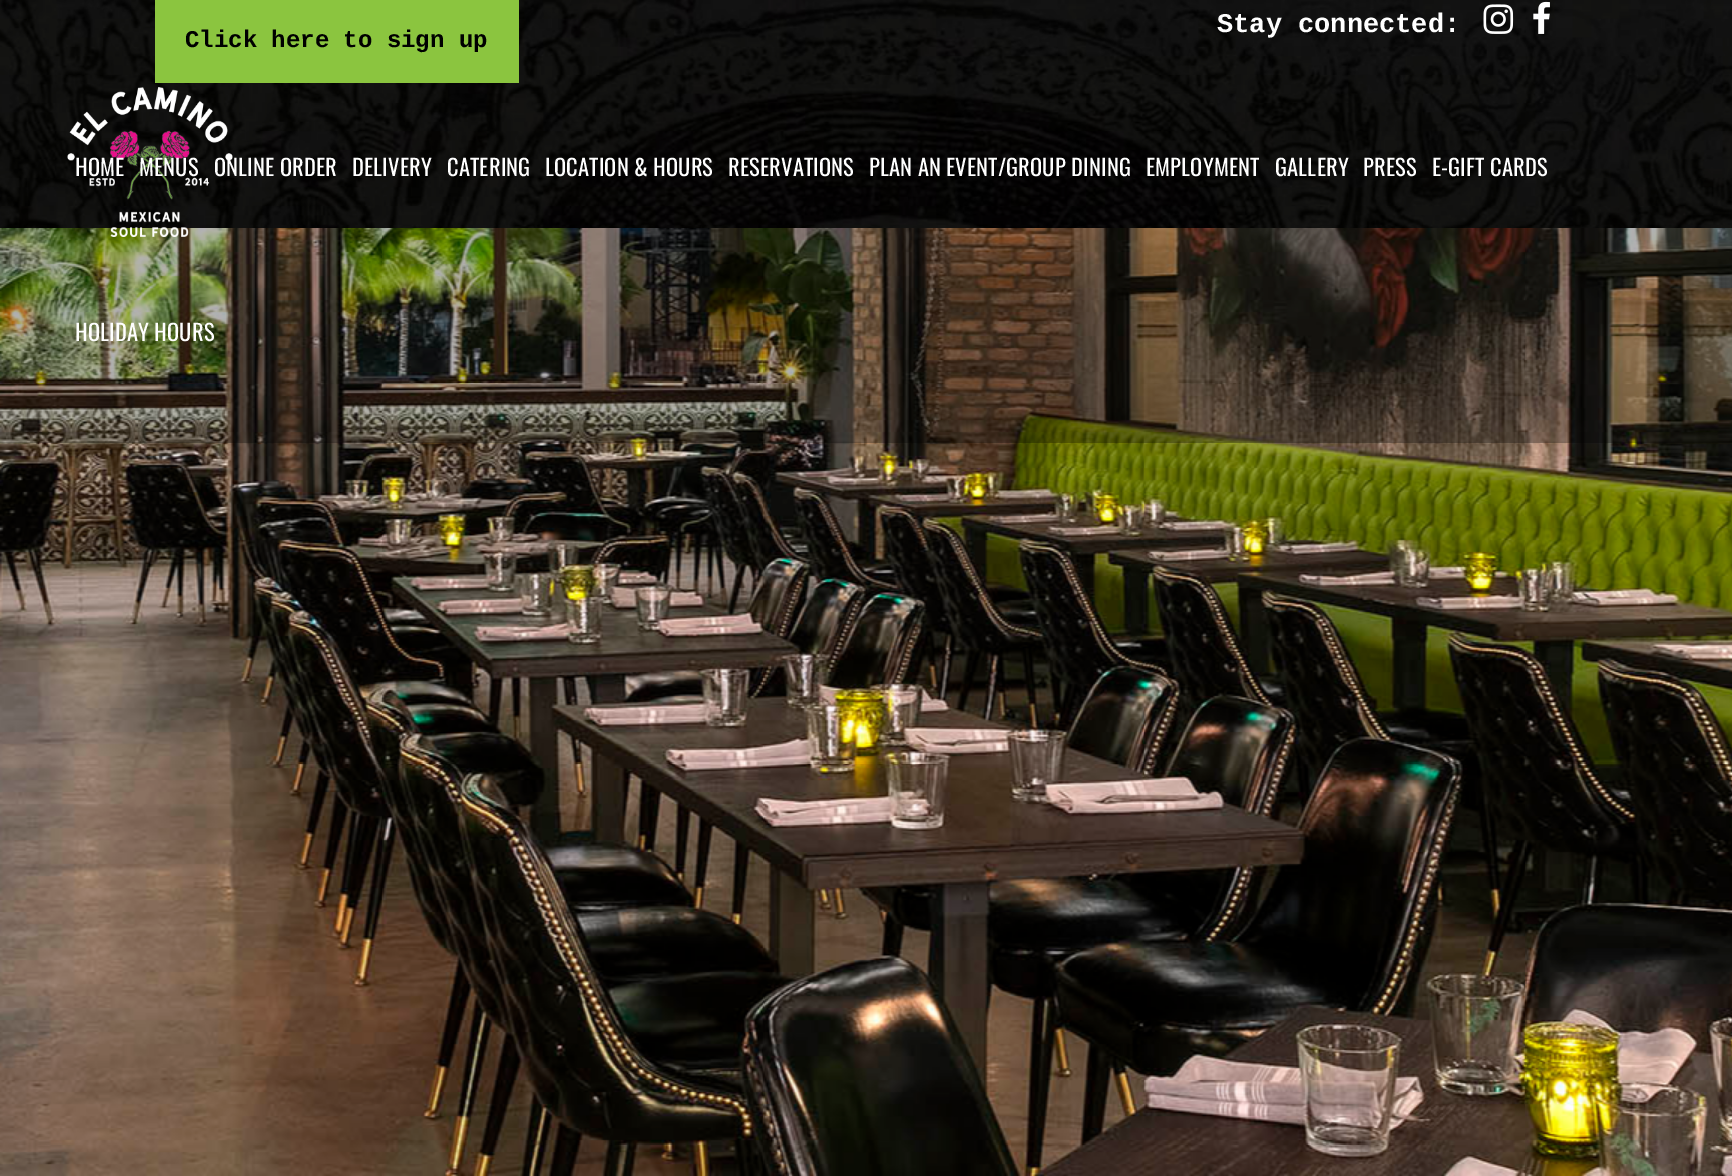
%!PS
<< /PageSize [1732 1176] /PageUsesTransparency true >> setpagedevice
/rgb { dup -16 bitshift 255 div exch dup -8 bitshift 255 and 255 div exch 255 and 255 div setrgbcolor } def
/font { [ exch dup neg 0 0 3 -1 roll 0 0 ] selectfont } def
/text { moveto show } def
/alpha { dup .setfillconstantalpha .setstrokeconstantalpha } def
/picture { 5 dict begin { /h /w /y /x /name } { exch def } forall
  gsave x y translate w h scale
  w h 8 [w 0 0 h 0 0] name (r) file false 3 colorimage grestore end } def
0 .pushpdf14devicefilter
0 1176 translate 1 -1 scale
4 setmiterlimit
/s1 { /LiberationMono-Bold 27 font 16#FFFFFF rgb } def
/s2 { /LiberationMono-Bold 24 font 16#000000 rgb } def
16#FFFFFF rgb
0 0 1732 1176 rectfill
(pic1.raw) 0 0 1732 228 picture
0.3 alpha
16#000000 rgb
0 0 1732 50 rectfill
1 alpha
s1
(Stay connected:) 1217 32 text
(pic2.raw) 1483 4 31 30 picture
(pic3.raw) 1533 1 17 33 picture
(pic5.raw) 0 228 1732 948 picture
0.3 alpha
16#000000 rgb
0 50 1732 393 rectfill
1 alpha
16#8BC53F rgb
155 0 364 83 rectfill
s2
(Click here to sign up) 185 47 text
(pic4.raw) 67 87 166 150 picture
/Oswald-Regular 22.5 font
16#FFFFFF rgb
75 176 moveto 0.15 0 (HOME) ashow
139 176 moveto 0.15 0 (MENUS) ashow
214 176 moveto 0.15 0 (ONLINE ORDER) ashow
352 176 moveto 0.15 0 (DELIVERY) ashow
447 176 moveto 0.15 0 (CATERING) ashow
545 176 moveto 0.15 0 (LOCATION & HOURS) ashow
728 176 moveto 0.15 0 (RESERVATIONS) ashow
869 176 moveto 0.15 0 (PLAN AN EVENT/GROUP DINING) ashow
1146 176 moveto 0.15 0 (EMPLOYMENT) ashow
1275 176 moveto 0.15 0 (GALLERY) ashow
1363 176 moveto 0.15 0 (PRESS) ashow
1432 176 moveto 0.15 0 (E-GIFT CARDS) ashow
75 341 moveto 0.15 0 (HOLIDAY HOURS) ashow
.poppdf14devicefilter showpage
